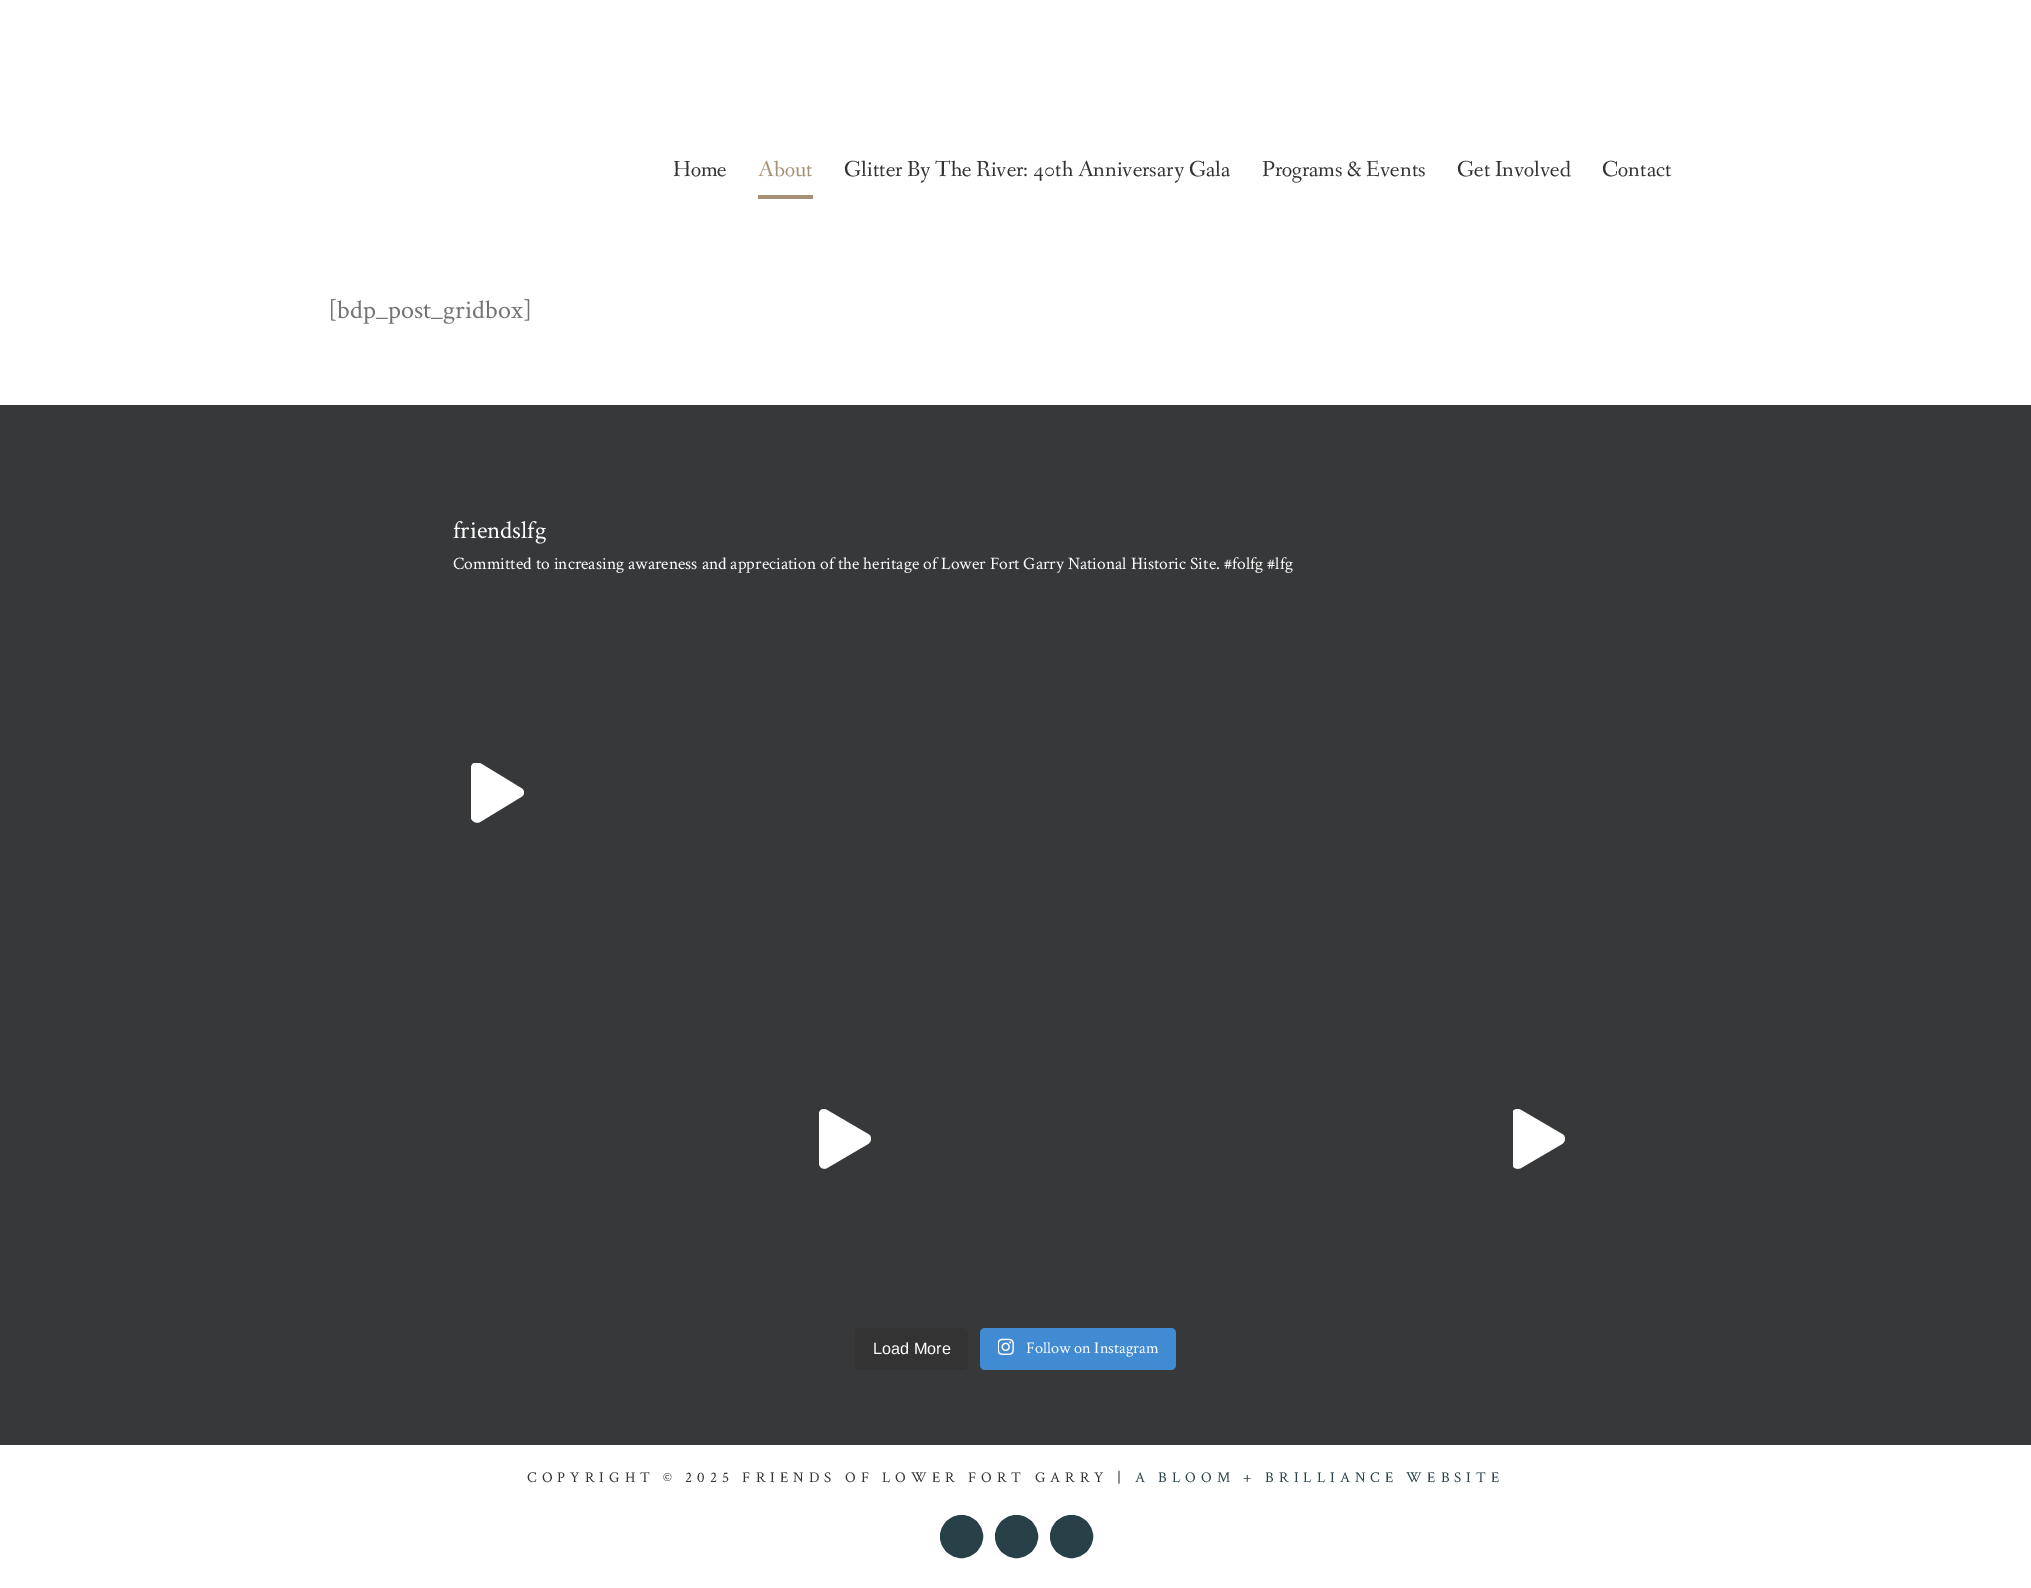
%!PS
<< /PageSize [2031 1588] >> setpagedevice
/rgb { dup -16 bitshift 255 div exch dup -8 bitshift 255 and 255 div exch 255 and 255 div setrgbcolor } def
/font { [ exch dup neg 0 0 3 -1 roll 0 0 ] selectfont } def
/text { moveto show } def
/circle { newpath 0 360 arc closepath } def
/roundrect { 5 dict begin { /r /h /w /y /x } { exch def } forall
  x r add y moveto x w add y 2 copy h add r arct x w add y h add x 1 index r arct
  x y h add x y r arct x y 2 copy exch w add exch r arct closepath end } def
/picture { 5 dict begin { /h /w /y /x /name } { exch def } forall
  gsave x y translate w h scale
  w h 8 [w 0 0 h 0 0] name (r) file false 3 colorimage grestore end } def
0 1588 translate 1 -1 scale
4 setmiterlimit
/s1 { /FanwoodText-Regular 22.5 font 16#333333 rgb } def
/s2 { /FanwoodText-Regular 22.5 font 16#A59275 rgb } def
/s3 { /CrimsonText-Regular 26.25 font 16#747474 rgb } def
/s4 { /CrimsonText-Regular 25 font 16#FFFFFF rgb } def
/s5 { /CrimsonText-Regular 17.5 font 16#FFFFFF rgb } def
/s6 { /LiberationSans-Regular 16.25 font 16#FFFFFF rgb } def
/s7 { /CrimsonText-Regular 16.25 font 16#FFFFFF rgb } def
16#FFFFFF rgb
0 0 2031 1588 rectfill
s1
(Home) 673 176 text
s2
(About) 758 176 text
758 195 55 4 rectfill
s1
(Glitter By The River: 40th Anniversary Gala) 844 176 text
(Programs & Events) 1262 176 text
(Get Involved) 1457 176 text
(Contact) 1602 176 text
s3
([bdp_post_gridbox]) 328 318 text
16#363839 rgb
0 405 2031 1040 rectfill
s4
(friendslfg) 453 538 text
s5
(Committed to increasing awareness and appreciation of the heritage of Lower Fort Garry National Historic Site. #folfg #lfg) 453 569 text
gsave
471 763 53 60 rectclip
521 788 moveto 480 763 lineto 476 761 471 763 471 768 curveto 471 817 lineto 471 821 476 824 480 822 curveto 521 797 lineto 525 795 525 790 521 788 curveto closepath fill
grestore
868 1134 moveto 827 1110 lineto 824 1108 819 1109 819 1114 curveto 819 1163 lineto 819 1168 824 1170 827 1168 curveto 868 1144 lineto 872 1141 872 1136 868 1134 curveto closepath fill
gsave
1513 1109 52 60 rectclip
1562 1134 moveto 1521 1110 lineto 1518 1108 1512 1109 1512 1114 curveto 1512 1163 lineto 1512 1168 1517 1170 1521 1168 curveto 1562 1144 lineto 1566 1141 1566 1136 1562 1134 curveto closepath fill
grestore
16#333333 rgb
855 1328 113 42 5 roundrect fill
s6
(Load More) 873 1354 text
16#408BD1 rgb
980 1328 196 42 5 roundrect fill
(pic1.raw) 998 1338 16 17 picture
s7
(Follow on Instagram) 1026 1353 text
/CrimsonText-Regular 15 font
16#333333 rgb
527 1482 moveto 5 0 (COPYRIGHT © 2025 FRIENDS OF LOWER FORT GARRY |) ashow
16#284149 rgb
1135 1482 moveto 5 0 (A BLOOM + BRILLIANCE WEBSITE) ashow
961.5 1536.5 21 circle gsave fill grestore
stroke
1016.5 1536.5 21 circle gsave fill grestore
stroke
1071.5 1536.5 21 circle gsave fill grestore
stroke
showpage
